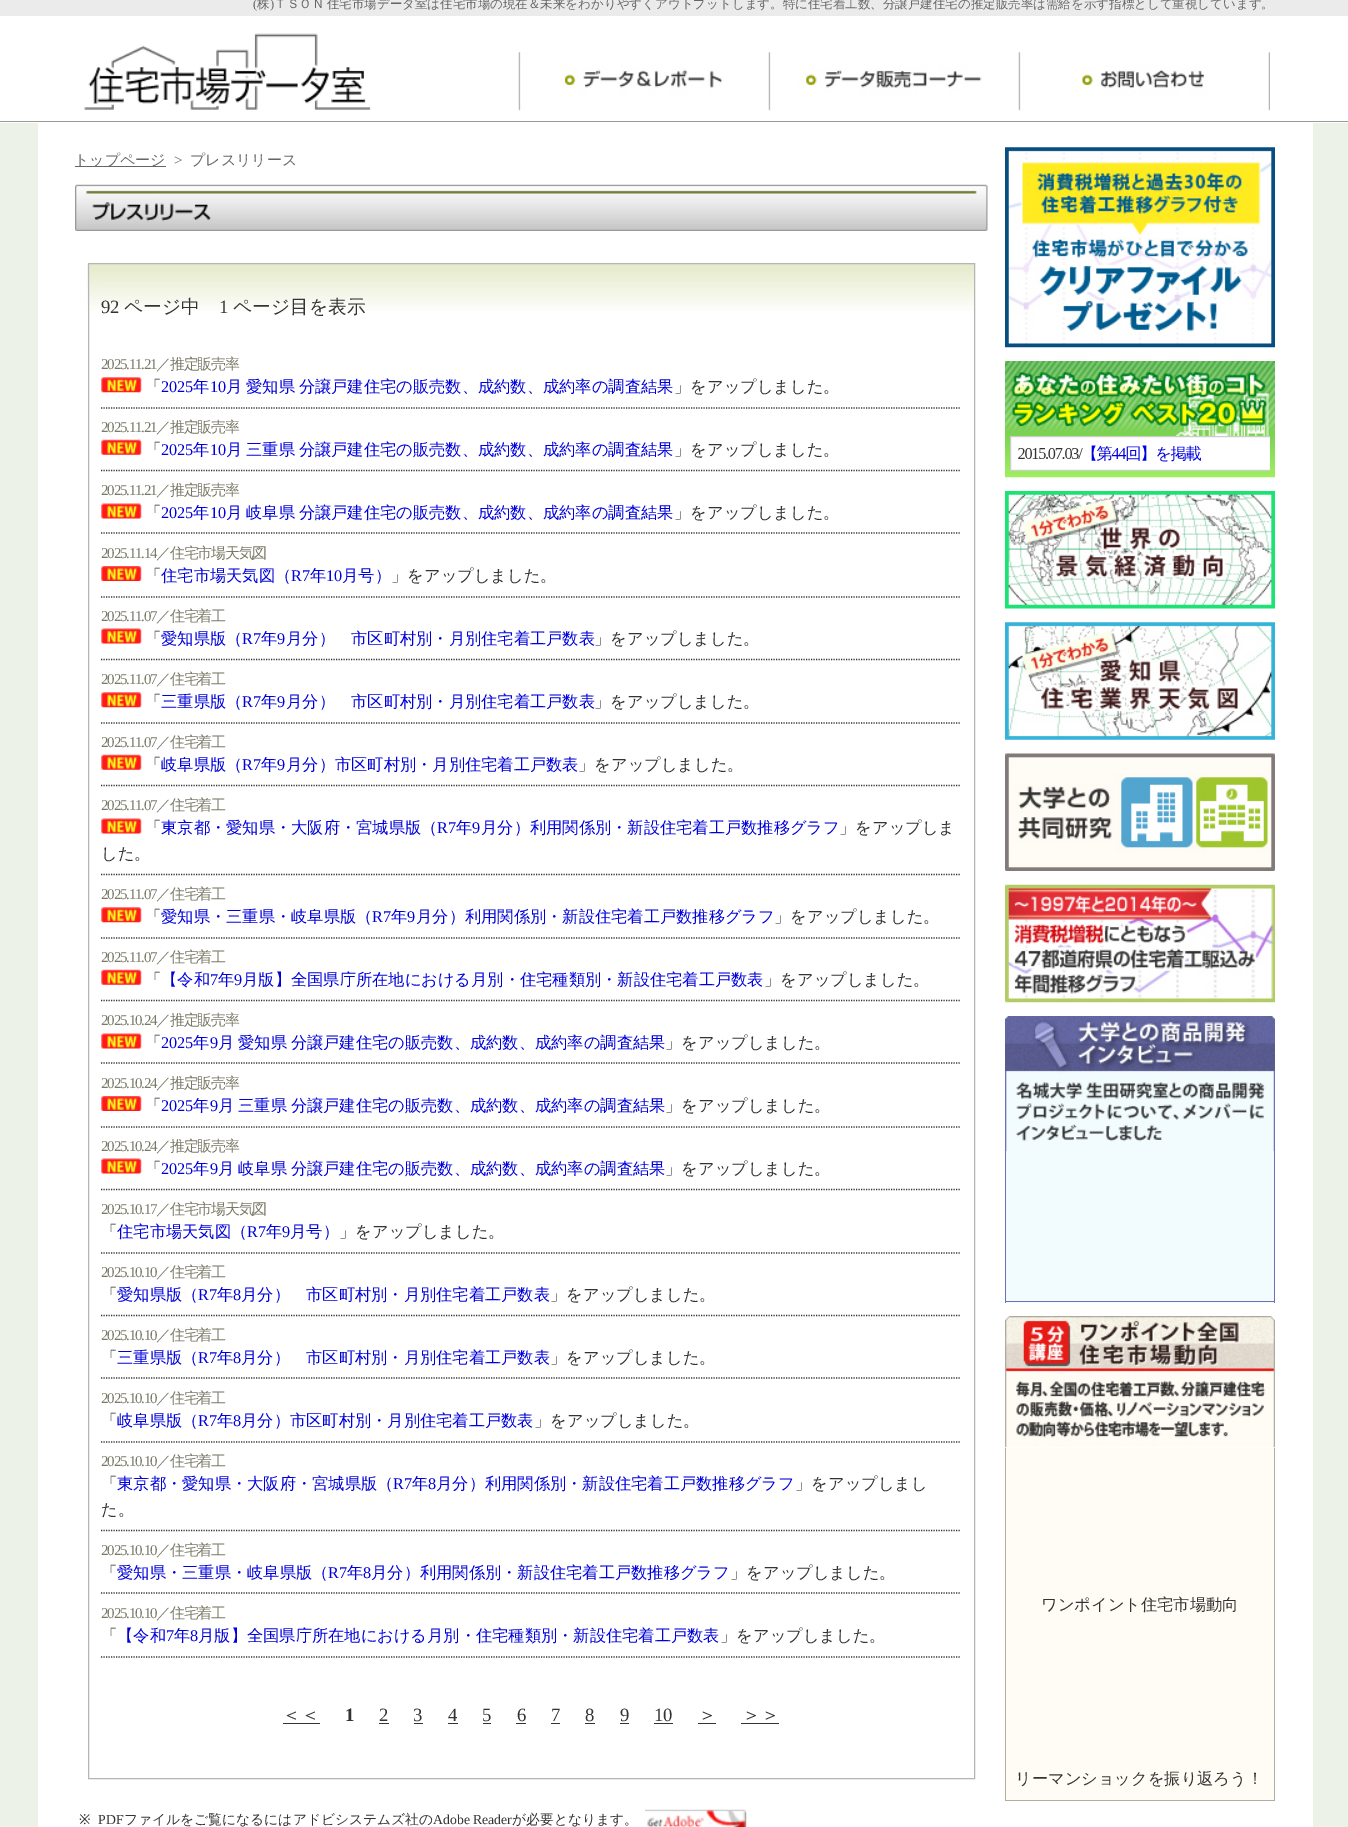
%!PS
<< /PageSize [1348 1827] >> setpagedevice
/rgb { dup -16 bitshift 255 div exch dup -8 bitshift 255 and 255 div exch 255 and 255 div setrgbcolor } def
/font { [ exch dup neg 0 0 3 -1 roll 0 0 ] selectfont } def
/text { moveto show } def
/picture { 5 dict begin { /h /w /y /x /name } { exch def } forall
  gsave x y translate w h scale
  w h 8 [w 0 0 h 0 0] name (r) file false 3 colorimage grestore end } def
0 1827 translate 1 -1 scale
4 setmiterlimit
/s1 { /LiberationSerif-Regular 12.5 font 16#666666 rgb } def
/s2 { /WenQuanYiZenHei-Medium 12.5 font 16#666666 rgb } def
/s3 { /WenQuanYiZenHei-Medium 15 font 16#666666 rgb } def
/s4 { /LiberationSerif-Regular 15 font 16#666666 rgb } def
/s5 { /LiberationSerif-Regular 18.75 font 16#333333 rgb } def
/s6 { /WenQuanYiZenHei-Medium 18.75 font 16#333333 rgb } def
/s7 { /WenQuanYiZenHei-Medium 16.25 font 16#333333 rgb } def
/s8 { /LiberationSerif-Regular 16.25 font 16#0000DD rgb } def
/s9 { /WenQuanYiZenHei-Medium 16.25 font 16#0000DD rgb } def
/s10 { /LiberationSerif-Bold 18.75 font 16#333333 rgb } def
/s11 { /NotoSans-Regular 13.75 font 16#333333 rgb } def
/s12 { /LiberationSerif-Regular 13.75 font 16#333333 rgb } def
/s13 { /WenQuanYiZenHei-Medium 13.75 font 16#333333 rgb } def
16#FFFFFF rgb
0 0 1348 1827 rectfill
16#EBEBEB rgb
0 0 1348 16 rectfill
s1
(\() 253 8 text
s2
(株) 257 8 text
s1
(\)) 270 8 text
/WenQuanYiZenHei-Medium 12.5 font
274 8 moveto -1 0 32 (ＴＳＯＮ 住宅市場データ室は住宅市場の現在＆未来をわかりやすくアウトプットします。特に住宅着工数、分譲戸建住宅の推定販売率は需給を示す指標として重視しています。) widthshow
16#999999 rgb
0 121 1348 1 rectfill
(pic1.raw) 83 33 288 77 picture
(pic2.raw) 518 52 205 59 picture
(pic3.raw) 768 52 214 59 picture
(pic4.raw) 1018 52 252 59 picture
16#ECF2E7 rgb
0 123 1348 1704 rectfill
16#FFFFFF rgb
38 123 1275 1704 rectfill
16#666666 rgb
75 166 91 1 rectfill
s3
(トップページ) 74 165 text
s4
(>) 174 165 text
s3
(プレスリリース) 190 165 text
(pic5.raw) 75 184 913 47 picture
(pic6.raw) 87 263 887 48 picture
16#B5B5B5 rgb
88.5 263.5 886 1515 rectstroke
s5
(92) 101 313 text
s6
(ページ中) 124 313 text
s5
(1) 219 313 text
s6
(ページ目を表示) 233 313 text
1.2 setlinewidth
[1.25 1.25] 0 setdash
101 408 moveto 961 408 lineto stroke
/LiberationSerif-Regular 15 font
16#7A7867 rgb
101 369 moveto -1.25 0 (2025.11.21) ashow
/WenQuanYiZenHei-Medium 15 font
156 369 moveto -1.25 0 (／推定販売率) ashow
(pic7.raw) 101 377 41 16 picture
s7
(「) 145 392 text
s8
(2025) 161 392 text
s9
(年) 193 392 text
s8
(10) 210 392 text
/WenQuanYiZenHei-Medium 16.25 font
226 392 moveto -1 0 32 (月 愛知県 分譲戸建住宅の販売数、成約数、成約率の調査結果) widthshow
s7
(」をアップしました。) 674 392 text
101 470.5 moveto 961 470.5 lineto stroke
/LiberationSerif-Regular 15 font
16#7A7867 rgb
101 432 moveto -1.25 0 (2025.11.21) ashow
/WenQuanYiZenHei-Medium 15 font
156 432 moveto -1.25 0 (／推定販売率) ashow
(pic8.raw) 101 439 41 16 picture
s7
(「) 145 455 text
s8
(2025) 161 455 text
s9
(年) 193 455 text
s8
(10) 210 455 text
/WenQuanYiZenHei-Medium 16.25 font
226 455 moveto -1 0 32 (月 三重県 分譲戸建住宅の販売数、成約数、成約率の調査結果) widthshow
s7
(」をアップしました。) 674 455 text
101 533 moveto 961 533 lineto stroke
/LiberationSerif-Regular 15 font
16#7A7867 rgb
101 495 moveto -1.25 0 (2025.11.21) ashow
/WenQuanYiZenHei-Medium 15 font
156 495 moveto -1.25 0 (／推定販売率) ashow
(pic9.raw) 101 503 41 16 picture
s7
(「) 145 518 text
s8
(2025) 161 518 text
s9
(年) 193 518 text
s8
(10) 210 518 text
/WenQuanYiZenHei-Medium 16.25 font
226 518 moveto -1 0 32 (月 岐阜県 分譲戸建住宅の販売数、成約数、成約率の調査結果) widthshow
s7
(」をアップしました。) 674 518 text
101 597 moveto 961 597 lineto stroke
/LiberationSerif-Regular 15 font
16#7A7867 rgb
101 558 moveto -1.25 0 (2025.11.14) ashow
/WenQuanYiZenHei-Medium 15 font
156 558 moveto -1.25 0 (／住宅市場天気図) ashow
(pic10.raw) 101 566 41 15 picture
s7
(「) 145 581 text
s9
(住宅市場天気図（) 161 581 text
s8
(R7) 291 581 text
s9
(年) 310 581 text
s8
(10) 326 581 text
s9
(月号）) 342 581 text
s7
(」をアップしました。) 391 581 text
101 659.5 moveto 961 659.5 lineto stroke
/LiberationSerif-Regular 15 font
16#7A7867 rgb
101 621 moveto -1.25 0 (2025.11.07) ashow
/WenQuanYiZenHei-Medium 15 font
156 621 moveto -1.25 0 (／住宅着工) ashow
(pic11.raw) 101 628 41 16 picture
s7
(「) 145 644 text
s9
(愛知県版（) 161 644 text
s8
(R7) 242 644 text
s9
(年) 261 644 text
s8
(9) 277 644 text
s9
(月分）　市区町村別・月別住宅着工戸数表) 286 644 text
s7
(」をアップしました。) 594 644 text
101 723 moveto 961 723 lineto stroke
/LiberationSerif-Regular 15 font
16#7A7867 rgb
101 684 moveto -1.25 0 (2025.11.07) ashow
/WenQuanYiZenHei-Medium 15 font
156 684 moveto -1.25 0 (／住宅着工) ashow
(pic7.raw) 101 692 41 16 picture
s7
(「) 145 707 text
s9
(三重県版（) 161 707 text
s8
(R7) 242 707 text
s9
(年) 261 707 text
s8
(9) 277 707 text
s9
(月分）　市区町村別・月別住宅着工戸数表) 286 707 text
s7
(」をアップしました。) 594 707 text
101 785.5 moveto 961 785.5 lineto stroke
/LiberationSerif-Regular 15 font
16#7A7867 rgb
101 747 moveto -1.25 0 (2025.11.07) ashow
/WenQuanYiZenHei-Medium 15 font
156 747 moveto -1.25 0 (／住宅着工) ashow
(pic8.raw) 101 754 41 16 picture
s7
(「) 145 770 text
s9
(岐阜県版（) 161 770 text
s8
(R7) 242 770 text
s9
(年) 261 770 text
s8
(9) 277 770 text
s9
(月分）市区町村別・月別住宅着工戸数表) 286 770 text
s7
(」をアップしました。) 578 770 text
101 874.5 moveto 961 874.5 lineto stroke
/LiberationSerif-Regular 15 font
16#7A7867 rgb
101 810 moveto -1.25 0 (2025.11.07) ashow
/WenQuanYiZenHei-Medium 15 font
156 810 moveto -1.25 0 (／住宅着工) ashow
(pic11.raw) 101 818 41 16 picture
s7
(「) 145 833 text
s9
(東京都・愛知県・大阪府・宮城県版（) 161 833 text
s8
(R7) 437 833 text
s9
(年) 456 833 text
s8
(9) 472 833 text
s9
(月分）利用関係別・新設住宅着工戸数推移グラフ) 481 833 text
s7
(」をアップしま) 839 833 text
(した。) 101 859 text
101 938 moveto 961 938 lineto stroke
/LiberationSerif-Regular 15 font
16#7A7867 rgb
101 899 moveto -1.25 0 (2025.11.07) ashow
/WenQuanYiZenHei-Medium 15 font
156 899 moveto -1.25 0 (／住宅着工) ashow
(pic7.raw) 101 907 41 16 picture
s7
(「) 145 922 text
s9
(愛知県・三重県・岐阜県版（) 161 922 text
s8
(R7) 372 922 text
s9
(年) 391 922 text
s8
(9) 407 922 text
s9
(月分）利用関係別・新設住宅着工戸数推移グラフ) 416 922 text
s7
(」をアップしました。) 774 922 text
101 1000.5 moveto 961 1000.5 lineto stroke
/LiberationSerif-Regular 15 font
16#7A7867 rgb
101 962 moveto -1.25 0 (2025.11.07) ashow
/WenQuanYiZenHei-Medium 15 font
156 962 moveto -1.25 0 (／住宅着工) ashow
(pic8.raw) 101 969 41 16 picture
s7
(「) 145 985 text
s9
(【令和) 161 985 text
s8
(7) 210 985 text
s9
(年) 218 985 text
s8
(9) 234 985 text
s9
(月版】全国県庁所在地における月別・住宅種類別・新設住宅着工戸数表) 242 985 text
s7
(」をアップしました。) 764 985 text
101 1063 moveto 961 1063 lineto stroke
/LiberationSerif-Regular 15 font
16#7A7867 rgb
101 1025 moveto -1.25 0 (2025.10.24) ashow
/WenQuanYiZenHei-Medium 15 font
156 1025 moveto -1.25 0 (／推定販売率) ashow
(pic11.raw) 101 1033 41 16 picture
s7
(「) 145 1048 text
s8
(2025) 161 1048 text
s9
(年) 193 1048 text
s8
(9) 210 1048 text
/WenQuanYiZenHei-Medium 16.25 font
218 1048 moveto -1 0 32 (月 愛知県 分譲戸建住宅の販売数、成約数、成約率の調査結果) widthshow
s7
(」をアップしました。) 665 1048 text
101 1127 moveto 961 1127 lineto stroke
/LiberationSerif-Regular 15 font
16#7A7867 rgb
101 1088 moveto -1.25 0 (2025.10.24) ashow
/WenQuanYiZenHei-Medium 15 font
156 1088 moveto -1.25 0 (／推定販売率) ashow
(pic10.raw) 101 1096 41 15 picture
s7
(「) 145 1111 text
s8
(2025) 161 1111 text
s9
(年) 193 1111 text
s8
(9) 210 1111 text
/WenQuanYiZenHei-Medium 16.25 font
218 1111 moveto -1 0 32 (月 三重県 分譲戸建住宅の販売数、成約数、成約率の調査結果) widthshow
s7
(」をアップしました。) 665 1111 text
101 1189.5 moveto 961 1189.5 lineto stroke
/LiberationSerif-Regular 15 font
16#7A7867 rgb
101 1151 moveto -1.25 0 (2025.10.24) ashow
/WenQuanYiZenHei-Medium 15 font
156 1151 moveto -1.25 0 (／推定販売率) ashow
(pic12.raw) 101 1158 41 16 picture
s7
(「) 145 1174 text
s8
(2025) 161 1174 text
s9
(年) 193 1174 text
s8
(9) 210 1174 text
/WenQuanYiZenHei-Medium 16.25 font
218 1174 moveto -1 0 32 (月 岐阜県 分譲戸建住宅の販売数、成約数、成約率の調査結果) widthshow
s7
(」をアップしました。) 665 1174 text
101 1253 moveto 961 1253 lineto stroke
/LiberationSerif-Regular 15 font
16#7A7867 rgb
101 1214 moveto -1.25 0 (2025.10.17) ashow
/WenQuanYiZenHei-Medium 15 font
156 1214 moveto -1.25 0 (／住宅市場天気図) ashow
s7
(「) 101 1237 text
s9
(住宅市場天気図（) 117 1237 text
s8
(R7) 247 1237 text
s9
(年) 266 1237 text
s8
(9) 282 1237 text
s9
(月号）) 290 1237 text
s7
(」をアップしました。) 339 1237 text
101 1315.5 moveto 961 1315.5 lineto stroke
/LiberationSerif-Regular 15 font
16#7A7867 rgb
101 1277 moveto -1.25 0 (2025.10.10) ashow
/WenQuanYiZenHei-Medium 15 font
156 1277 moveto -1.25 0 (／住宅着工) ashow
s7
(「) 101 1300 text
s9
(愛知県版（) 117 1300 text
s8
(R7) 198 1300 text
s9
(年) 217 1300 text
s8
(8) 233 1300 text
s9
(月分）　市区町村別・月別住宅着工戸数表) 241 1300 text
s7
(」をアップしました。) 550 1300 text
101 1378 moveto 961 1378 lineto stroke
/LiberationSerif-Regular 15 font
16#7A7867 rgb
101 1340 moveto -1.25 0 (2025.10.10) ashow
/WenQuanYiZenHei-Medium 15 font
156 1340 moveto -1.25 0 (／住宅着工) ashow
s7
(「) 101 1363 text
s9
(三重県版（) 117 1363 text
s8
(R7) 198 1363 text
s9
(年) 217 1363 text
s8
(8) 233 1363 text
s9
(月分）　市区町村別・月別住宅着工戸数表) 241 1363 text
s7
(」をアップしました。) 550 1363 text
101 1442 moveto 961 1442 lineto stroke
/LiberationSerif-Regular 15 font
16#7A7867 rgb
101 1403 moveto -1.25 0 (2025.10.10) ashow
/WenQuanYiZenHei-Medium 15 font
156 1403 moveto -1.25 0 (／住宅着工) ashow
s7
(「) 101 1426 text
s9
(岐阜県版（) 117 1426 text
s8
(R7) 198 1426 text
s9
(年) 217 1426 text
s8
(8) 233 1426 text
s9
(月分）市区町村別・月別住宅着工戸数表) 241 1426 text
s7
(」をアップしました。) 534 1426 text
101 1530.5 moveto 961 1530.5 lineto stroke
/LiberationSerif-Regular 15 font
16#7A7867 rgb
101 1466 moveto -1.25 0 (2025.10.10) ashow
/WenQuanYiZenHei-Medium 15 font
156 1466 moveto -1.25 0 (／住宅着工) ashow
s7
(「) 101 1489 text
s9
(東京都・愛知県・大阪府・宮城県版（) 117 1489 text
s8
(R7) 393 1489 text
s9
(年) 412 1489 text
s8
(8) 428 1489 text
s9
(月分）利用関係別・新設住宅着工戸数推移グラフ) 436 1489 text
s7
(」をアップしまし) 795 1489 text
(た。) 101 1515 text
101 1593 moveto 961 1593 lineto stroke
/LiberationSerif-Regular 15 font
16#7A7867 rgb
101 1555 moveto -1.25 0 (2025.10.10) ashow
/WenQuanYiZenHei-Medium 15 font
156 1555 moveto -1.25 0 (／住宅着工) ashow
s7
(「) 101 1578 text
s9
(愛知県・三重県・岐阜県版（) 117 1578 text
s8
(R7) 328 1578 text
s9
(年) 347 1578 text
s8
(8) 363 1578 text
s9
(月分）利用関係別・新設住宅着工戸数推移グラフ) 371 1578 text
s7
(」をアップしました。) 730 1578 text
101 1657 moveto 961 1657 lineto stroke
/LiberationSerif-Regular 15 font
16#7A7867 rgb
101 1618 moveto -1.25 0 (2025.10.10) ashow
/WenQuanYiZenHei-Medium 15 font
156 1618 moveto -1.25 0 (／住宅着工) ashow
s7
(「) 101 1641 text
s9
(【令和) 117 1641 text
s8
(7) 166 1641 text
s9
(年) 174 1641 text
s8
(8) 190 1641 text
s9
(月版】全国県庁所在地における月別・住宅種類別・新設住宅着工戸数表) 198 1641 text
s7
(」をアップしました。) 720 1641 text
s6
(＜＜) 282 1721 text
283 1723 37 1 rectfill
s10
(1) 345 1721 text
s5
(2) 379 1721 text
379 1723 10 1 rectfill
(3) 413 1721 text
414 1723 9 1 rectfill
(4) 448 1721 text
448 1723 10 1 rectfill
(5) 482 1721 text
483 1723 8 1 rectfill
(6) 517 1721 text
516 1723 10 1 rectfill
(7) 551 1721 text
551 1723 9 1 rectfill
(8) 585 1721 text
585 1723 10 1 rectfill
(9) 620 1721 text
620 1723 9 1 rectfill
(10) 654 1721 text
654 1723 19 1 rectfill
s6
(＞) 698 1721 text
698 1723 18 1 rectfill
(＞＞) 742 1721 text
741 1723 38 1 rectfill
s11
(※) 79 1824 text
s12
(PDF) 98 1824 text
s13
(ファイルをご覧になるにはアドビシステムズ社の) 124 1824 text
s12
(Adobe Reader) 433 1824 text
s13
(が必要となります。) 512 1824 text
(pic13.raw) 645 1809 102 18 picture
(pic14.raw) 1005 147 270 201 picture
(pic15.raw) 1005 361 270 117 picture
(pic16.raw) 1010 436 260 35 picture
(pic17.raw) 1005 491 270 118 picture
(pic18.raw) 1005 622 270 118 picture
(pic19.raw) 1005 753 270 118 picture
(pic20.raw) 1005 884 270 119 picture
(pic21.raw) 1005 1016 270 135 picture
16#F2FCFF rgb
1006 1151 268 152 rectfill
16#6F70B3 rgb
1274 1151 1 152 rectfill
1005 1301 270 1 rectfill
1005 1151 1 152 rectfill
(pic22.raw) 1005 1316 270 132 picture
16#FFFCF5 rgb
1006 1448 268 352 rectfill
16#B3ADA1 rgb
1274 1448 1 353 rectfill
1005 1800 270 1 rectfill
1005 1448 1 353 rectfill
s7
(ワンポイント住宅市場動向) 1041 1610 text
(リーマンショックを振り返ろう！) 1015 1784 text
showpage
